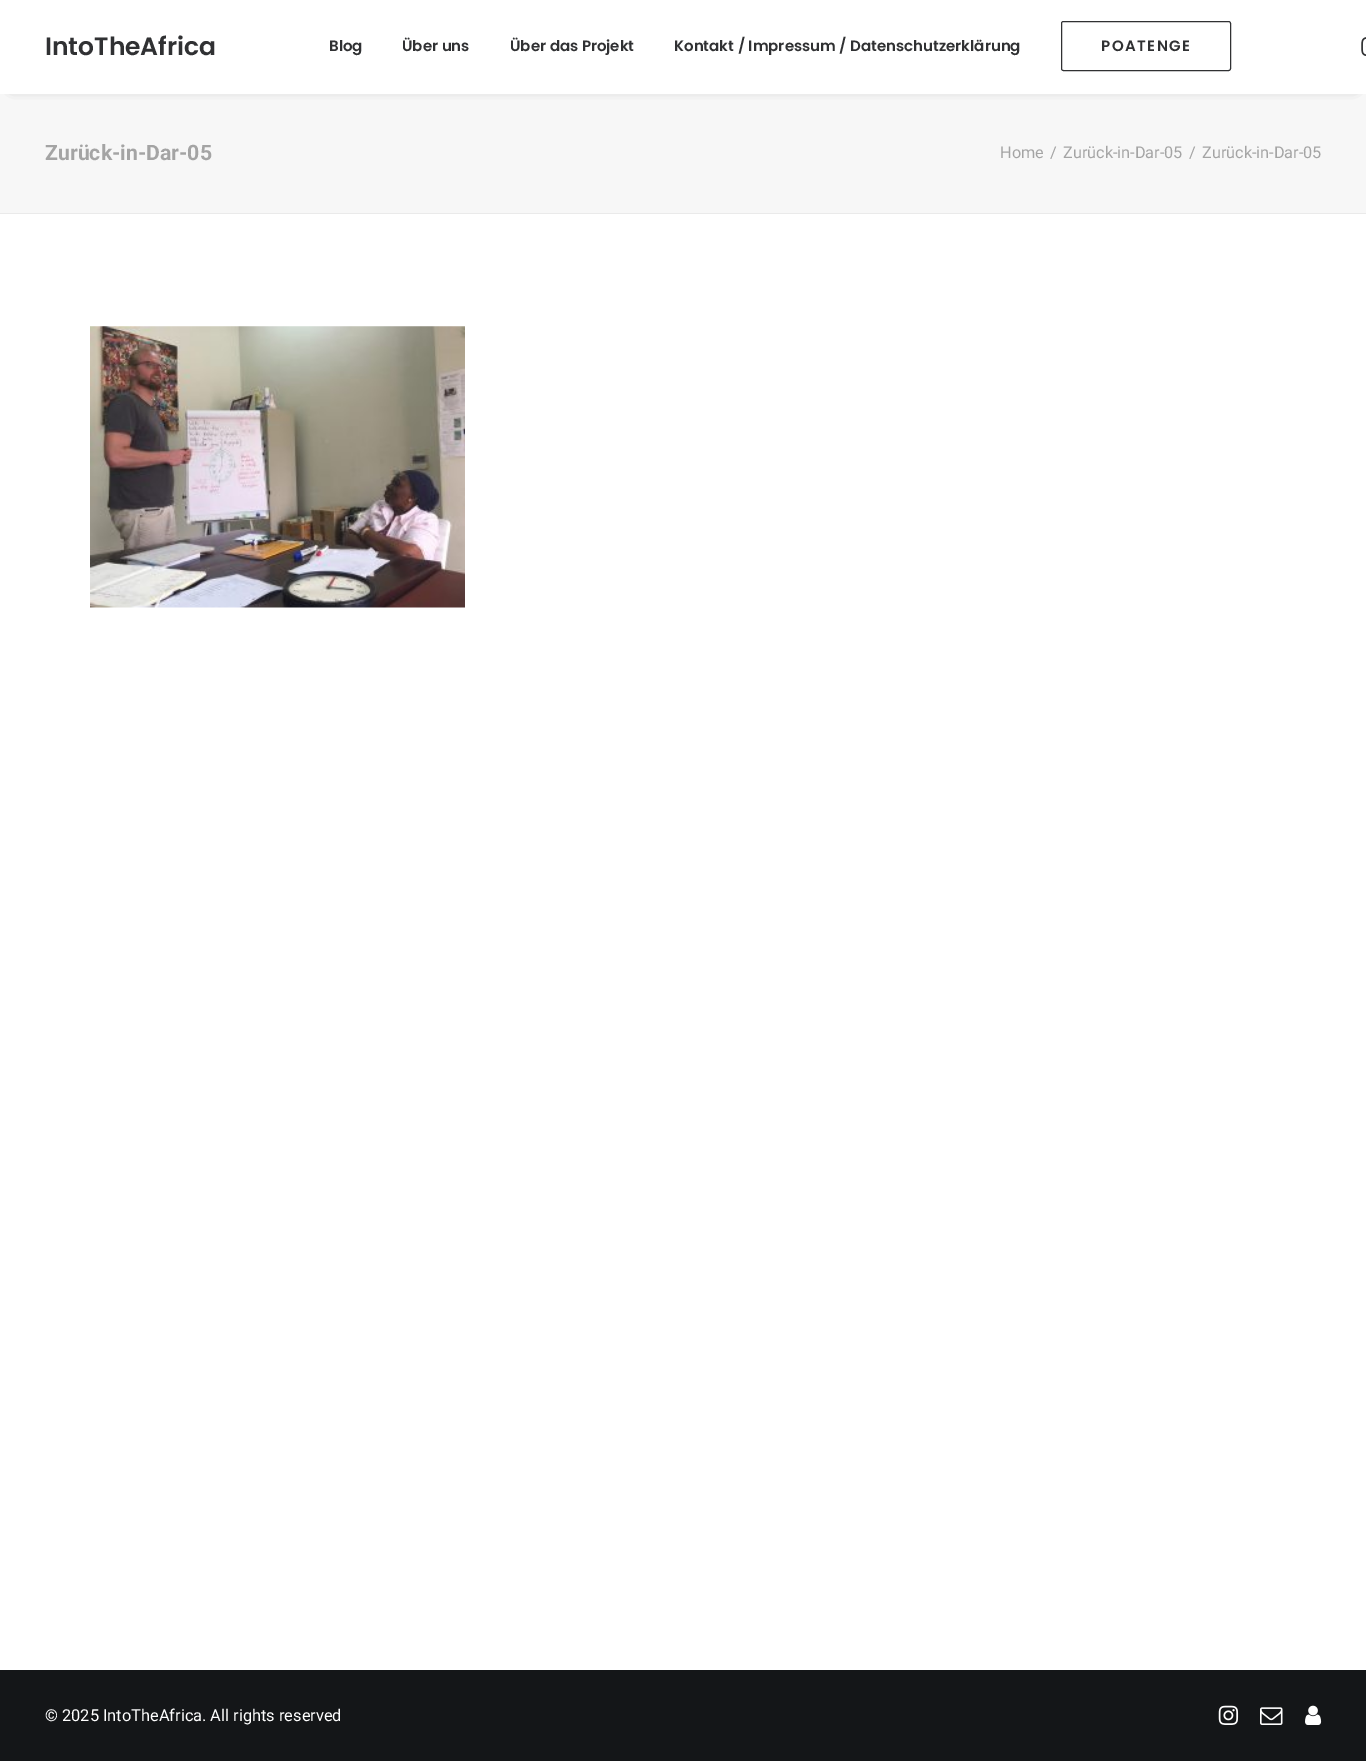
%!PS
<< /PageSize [1366 1761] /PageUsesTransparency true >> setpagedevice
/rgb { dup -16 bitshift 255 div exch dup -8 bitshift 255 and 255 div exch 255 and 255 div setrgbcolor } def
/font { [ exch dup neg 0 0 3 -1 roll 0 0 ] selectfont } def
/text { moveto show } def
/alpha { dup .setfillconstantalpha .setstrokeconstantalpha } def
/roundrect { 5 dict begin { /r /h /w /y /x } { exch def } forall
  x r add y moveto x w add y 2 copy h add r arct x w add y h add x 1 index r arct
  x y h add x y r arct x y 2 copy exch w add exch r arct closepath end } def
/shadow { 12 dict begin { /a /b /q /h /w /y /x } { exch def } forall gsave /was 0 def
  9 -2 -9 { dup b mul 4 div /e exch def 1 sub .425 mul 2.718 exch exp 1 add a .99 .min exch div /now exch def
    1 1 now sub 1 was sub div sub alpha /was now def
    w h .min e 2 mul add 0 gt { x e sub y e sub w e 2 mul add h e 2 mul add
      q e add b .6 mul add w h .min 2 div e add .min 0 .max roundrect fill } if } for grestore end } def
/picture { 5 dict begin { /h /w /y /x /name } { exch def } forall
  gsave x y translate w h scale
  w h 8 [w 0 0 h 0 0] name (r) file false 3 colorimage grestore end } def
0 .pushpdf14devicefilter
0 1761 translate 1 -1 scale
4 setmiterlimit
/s1 { /Poppins-SemiBold 25 font 16#303133 rgb } def
/s2 { /Poppins-SemiBold 15 font 16#303133 rgb } def
/s3 { /Roboto-Bold 21.25 font 16#A4A4A4 rgb } def
/s4 { /Roboto-Regular 16.25 font 16#A4A4A4 rgb } def
/s5 { /Roboto-Regular 16.4 font 16#FFFFFF rgb } def
16#F7F7F7 rgb
0 0 1366 1761 rectfill
16#000000 rgb
13 18 1341 68 0 6 0.6 shadow
16#FFFFFF rgb
0 0 1366 94 rectfill
s1
(IntoTheAfrica) 45 55 text
s2
(Blog) 329 51 text
(Über uns) 402 51 text
(Über das Projekt) 510 51 text
(Kontakt / Impressum / Datenschutzerklärung) 674 51 text
1061.5 21.5 169 49 2 roundrect stroke
1101 51 moveto 1.5 0 (POATENGE) ashow
(pic1.raw) 1361 37 5 19 picture
16#EAEAEA rgb
0 213 1366 1 rectfill
s3
(Zurück-in-Dar-05) 45 160 text
s4
(Home) 1000 158 text
(/) 1050 158 text
(Zurück-in-Dar-05) 1063 158 text
(/) 1189 158 text
(Zurück-in-Dar-05) 1202 158 text
16#FFFFFF rgb
0 214 1366 1456 rectfill
(pic2.raw) 90 326 375 282 picture
16#141618 rgb
0 1670 1366 91 rectfill
s5
(© 2025 IntoTheAfrica. All rights reserved) 45 1721 text
(pic3.raw) 1218 1705 21 20 picture
(pic4.raw) 1260 1707 23 18 picture
(pic5.raw) 1305 1705 17 20 picture
.poppdf14devicefilter showpage
